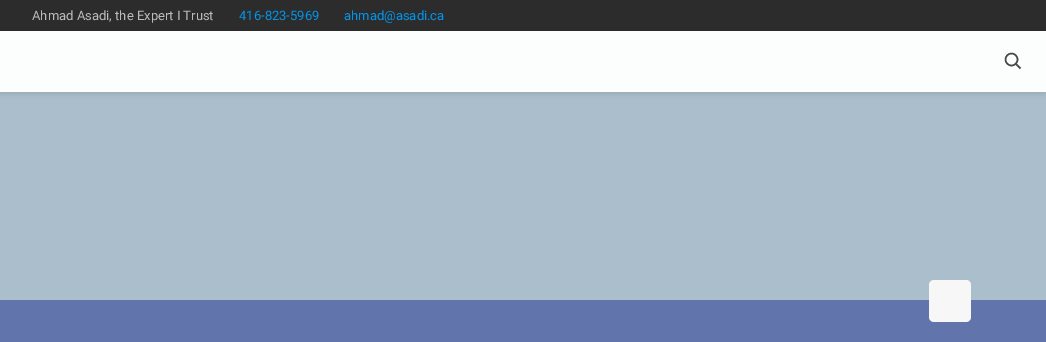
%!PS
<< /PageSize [1046 342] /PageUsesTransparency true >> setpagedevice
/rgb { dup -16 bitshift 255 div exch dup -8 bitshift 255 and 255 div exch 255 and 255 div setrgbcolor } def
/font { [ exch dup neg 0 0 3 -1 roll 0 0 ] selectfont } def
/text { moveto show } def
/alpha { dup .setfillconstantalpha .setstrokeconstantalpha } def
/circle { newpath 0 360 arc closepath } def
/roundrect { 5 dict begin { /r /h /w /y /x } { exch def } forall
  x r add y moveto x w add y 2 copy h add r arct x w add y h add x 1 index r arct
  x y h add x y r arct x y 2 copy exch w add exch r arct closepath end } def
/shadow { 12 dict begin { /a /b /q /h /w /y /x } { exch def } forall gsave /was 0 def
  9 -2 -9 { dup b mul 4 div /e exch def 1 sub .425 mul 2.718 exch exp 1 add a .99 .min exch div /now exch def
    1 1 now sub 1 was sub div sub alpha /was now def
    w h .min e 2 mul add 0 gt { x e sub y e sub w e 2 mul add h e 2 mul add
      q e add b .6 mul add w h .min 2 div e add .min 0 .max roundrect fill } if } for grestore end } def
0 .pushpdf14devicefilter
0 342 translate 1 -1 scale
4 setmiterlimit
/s1 { /Roboto-Regular 13 font 16#BBBBBB rgb } def
/s2 { /Roboto-Regular 13 font 16#0095EB rgb } def
16#AABFCB rgb
0 0 1046 342 rectfill
16#2C2C2C rgb
0 0 1046 31 rectfill
s1
(Ahmad Asadi, the Expert I Trust) 32 20 text
s2
(416-823-5969) 239 20 text
(ahmad@asadi.ca) 344 20 text
16#000000 rgb
0 33 1046 61 0 2.5 0.1 shadow
16#FCFDFD rgb
0 31 1046 61 rectfill
16#474848 rgb
1.5 setlinewidth
1011.5 59.5 6 circle stroke
1015.5 63.5 moveto 1020.5 68.5 lineto stroke
16#6175AC rgb
0 300 1046 42 rectfill
16#F7F7F7 rgb
929 280 42 42 5 roundrect fill
.poppdf14devicefilter showpage
